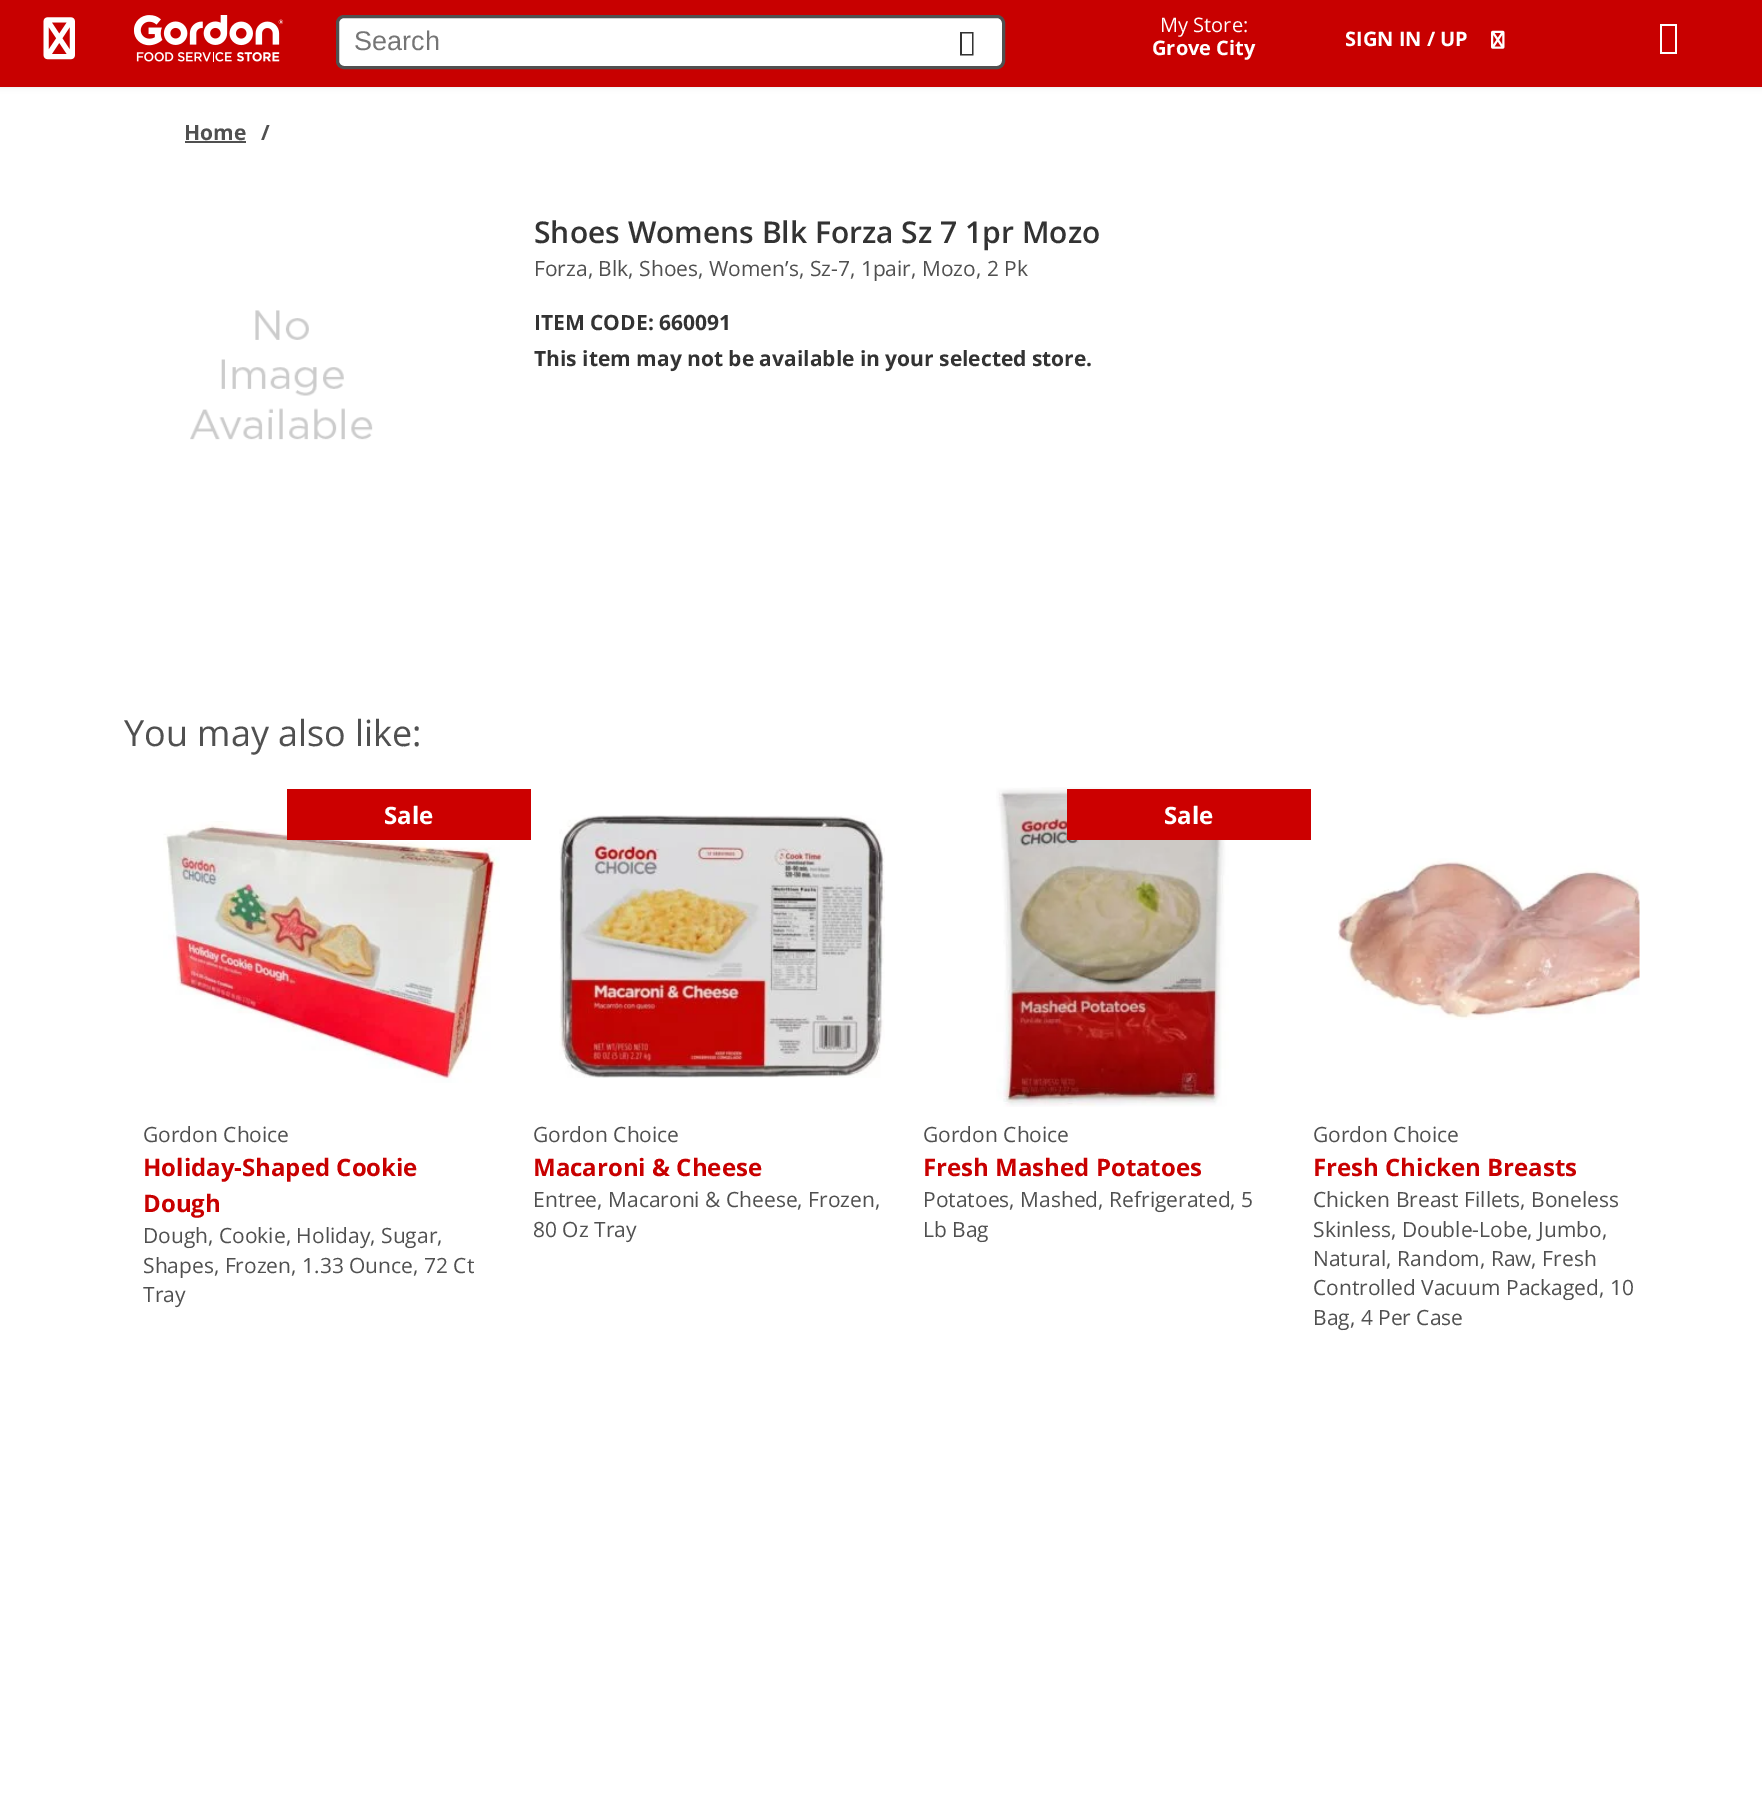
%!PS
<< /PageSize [1762 1806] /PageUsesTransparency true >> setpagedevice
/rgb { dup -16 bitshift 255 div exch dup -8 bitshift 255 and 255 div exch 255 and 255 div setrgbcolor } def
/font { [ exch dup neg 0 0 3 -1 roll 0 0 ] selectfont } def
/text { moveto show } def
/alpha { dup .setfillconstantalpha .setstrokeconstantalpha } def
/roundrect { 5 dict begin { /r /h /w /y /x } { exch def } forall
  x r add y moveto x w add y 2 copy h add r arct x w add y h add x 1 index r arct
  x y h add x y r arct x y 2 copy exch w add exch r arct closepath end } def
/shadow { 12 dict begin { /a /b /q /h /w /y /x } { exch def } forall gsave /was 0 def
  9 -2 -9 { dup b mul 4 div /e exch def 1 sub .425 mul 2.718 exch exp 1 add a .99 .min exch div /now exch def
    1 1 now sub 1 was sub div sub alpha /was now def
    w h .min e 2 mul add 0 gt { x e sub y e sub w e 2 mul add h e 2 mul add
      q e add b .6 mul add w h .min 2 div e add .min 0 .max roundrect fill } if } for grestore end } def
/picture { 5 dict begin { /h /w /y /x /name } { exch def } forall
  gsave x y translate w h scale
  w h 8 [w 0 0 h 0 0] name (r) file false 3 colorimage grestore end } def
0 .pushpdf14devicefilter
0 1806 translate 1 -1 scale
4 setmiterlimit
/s1 { /LiberationSans-Regular 27 font 16#757575 rgb } def
/s2 { /OpenSans-Regular 20 font 16#FFFFFF rgb } def
/s3 { /OpenSans-Bold 20 font 16#FFFFFF rgb } def
/s4 { /OpenSans-Bold 21 font 16#505050 rgb } def
/s5 { /OpenSans-SemiBold 30 font 16#333333 rgb } def
/s6 { /OpenSans-Regular 21 font 16#505050 rgb } def
/s7 { /OpenSans-Bold 21 font 16#333333 rgb } def
/s8 { /OpenSans-Regular 36 font 16#505050 rgb } def
/s9 { /OpenSans-Bold 24 font 16#FFFFFF rgb } def
/s10 { /OpenSans-Bold 24 font 16#C80000 rgb } def
16#FFFFFF rgb
0 0 1762 1806 rectfill
16#000000 rgb
0 0 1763 87 0 3 0.1 shadow
16#C80000 rgb
0 0 1762 87 rectfill
(pic1.raw) 43 17 32 43 picture
(pic2.raw) 134 15 150 47 picture
16#FFFFFF rgb
337.5 16.5 666 51 6.5 roundrect gsave fill grestore
16#505050 rgb
3 setlinewidth
stroke
s1
(Search) 354 50 text
16#333333 rgb
960 55.5 moveto 960 32 lineto 973.5 32 lineto 973.5 55.5 lineto closepath 962 54 moveto 972 54 lineto 972 33.5 lineto 962 33.5 lineto closepath fill
s2
(My Store:) 1160 32 text
s3
(Grove City) 1152 55 text
(SIGN IN / UP) 1345 46 text
(pic3.raw) 1491 30 14 19 picture
1660 54 moveto 1660 24 lineto 1677 24 lineto 1677 54 lineto closepath 1662 52 moveto 1675 52 lineto 1675 26 lineto 1662 26 lineto closepath fill
s4
(Home) 184 140 text
185 141 61 2 rectfill
(/) 261 140 text
(pic4.raw) 190 310 183 130 picture
s5
(Shoes Womens Blk Forza Sz 7 1pr Mozo) 534 243 text
s6
(Forza, Blk, Shoes, Women’s, Sz-7, 1pair, Mozo, 2 Pk) 534 276 text
s7
(ITEM CODE: 660091) 534 330 text
(This item may not be available in your selected store.) 534 366 text
s8
(You may also like:) 124 746 text
(pic5.raw) 163 821 337 262 picture
16#CC0000 rgb
287 789 244 51 rectfill
s9
(Sale) 384 824 text
s6
(Gordon Choice) 143 1142 text
s10
(Holiday-Shaped Cookie) 143 1176 text
(Dough) 143 1212 text
s6
(Dough, Cookie, Holiday, Sugar,) 143 1243 text
(Shapes, Frozen, 1.33 Ounce, 72 Ct) 143 1273 text
(Tray) 143 1302 text
(pic6.raw) 559 815 326 263 picture
(Gordon Choice) 533 1142 text
s10
(Macaroni & Cheese) 533 1176 text
s6
(Entree, Macaroni & Cheese, Frozen,) 533 1207 text
(80 Oz Tray) 533 1237 text
(pic7.raw) 996 787 233 320 picture
16#CC0000 rgb
1067 789 244 51 rectfill
s9
(Sale) 1164 824 text
s6
(Gordon Choice) 923 1142 text
s10
(Fresh Mashed Potatoes) 923 1176 text
s6
(Potatoes, Mashed, Refrigerated, 5) 923 1207 text
(Lb Bag) 923 1237 text
(pic8.raw) 1338 858 302 162 picture
(Gordon Choice) 1313 1142 text
s10
(Fresh Chicken Breasts) 1313 1176 text
s6
(Chicken Breast Fillets, Boneless) 1313 1207 text
(Skinless, Double-Lobe, Jumbo,) 1313 1237 text
(Natural, Random, Raw, Fresh) 1313 1266 text
(Controlled Vacuum Packaged, 10) 1313 1295 text
(Bag, 4 Per Case) 1313 1325 text
.poppdf14devicefilter showpage
